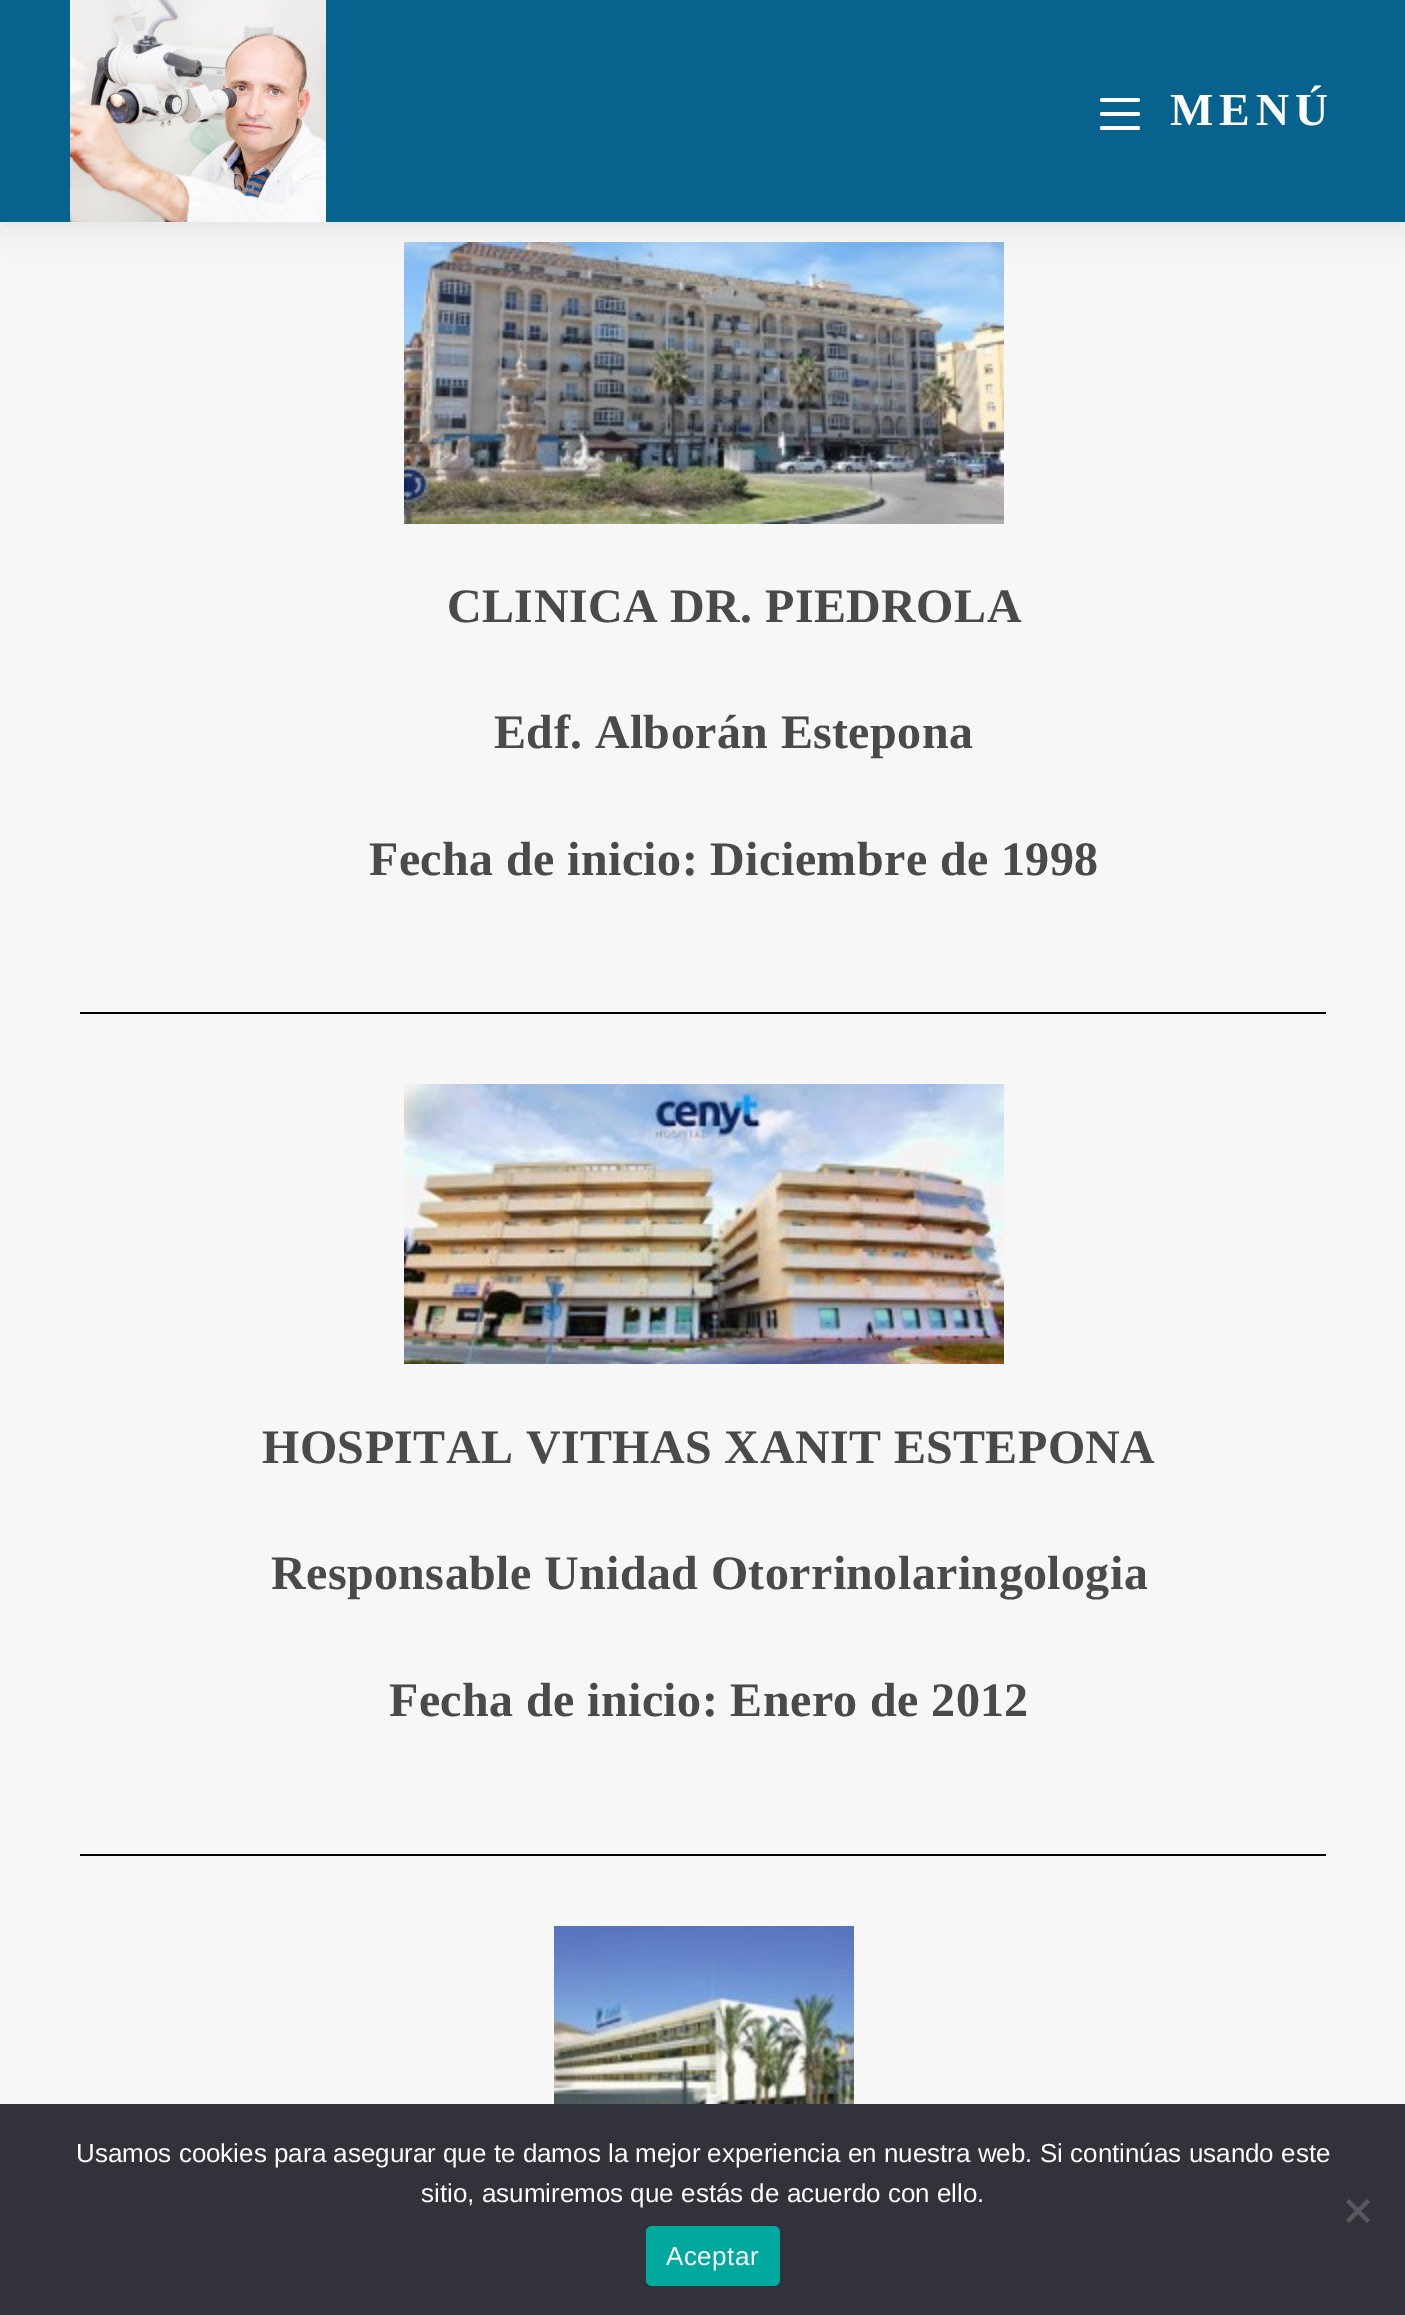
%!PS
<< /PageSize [1405 2315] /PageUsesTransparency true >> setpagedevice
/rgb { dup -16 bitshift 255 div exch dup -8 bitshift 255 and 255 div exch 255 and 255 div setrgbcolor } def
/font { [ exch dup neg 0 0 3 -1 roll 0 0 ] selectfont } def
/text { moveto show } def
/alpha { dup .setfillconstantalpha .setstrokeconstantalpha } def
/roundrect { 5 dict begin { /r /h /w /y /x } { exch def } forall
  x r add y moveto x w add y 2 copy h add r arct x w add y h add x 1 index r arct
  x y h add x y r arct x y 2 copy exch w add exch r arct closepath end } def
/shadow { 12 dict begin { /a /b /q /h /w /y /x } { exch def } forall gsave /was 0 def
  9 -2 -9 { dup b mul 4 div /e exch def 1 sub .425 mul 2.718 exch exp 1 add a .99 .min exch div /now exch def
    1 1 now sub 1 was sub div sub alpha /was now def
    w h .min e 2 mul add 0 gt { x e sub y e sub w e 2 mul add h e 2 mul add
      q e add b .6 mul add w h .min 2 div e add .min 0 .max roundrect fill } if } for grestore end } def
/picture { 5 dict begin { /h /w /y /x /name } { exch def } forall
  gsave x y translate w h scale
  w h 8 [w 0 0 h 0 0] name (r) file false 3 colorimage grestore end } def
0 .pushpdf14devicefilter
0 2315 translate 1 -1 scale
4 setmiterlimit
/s1 { /LiberationSans-Regular 26 font 16#FFFFFF rgb } def
16#F7F7F7 rgb
0 0 1405 2315 rectfill
(pic2.raw) 404 242 600 282 picture
16#000000 rgb
0 0 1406 222 0 20 0.1 shadow
16#08628E rgb
0 0 1405 222 rectfill
(pic1.raw) 70 0 256 222 picture
16#FFFFFF rgb
1100 126 40 4 2 roundrect fill
1100 98 40 4 2 roundrect fill
1100 112 40 4 2 roundrect fill
/LiberationSerif-Bold 46 font
1170 125 moveto 6 0 (MENÚ) ashow
/LiberationSerif-Bold 48 font
16#4A4A4A rgb
447 622 moveto 0.4 0 (CLINICA DR. PIEDROLA) ashow
494 748 moveto 0.4 0 (Edf. Alborán Estepona) ashow
369 875 moveto 0.4 0 (Fecha de inicio: Diciembre de 1998) ashow
16#000000 rgb
80 1012 1246 2 rectfill
(pic3.raw) 404 1084 600 280 picture
16#4A4A4A rgb
262 1463 moveto 0.4 0 (HOSPITAL VITHAS XANIT ESTEPONA) ashow
271 1589 moveto 0.4 0 (Responsable Unidad Otorrinolaringologia) ashow
389 1716 moveto 0.4 0 (Fecha de inicio: Enero de 2012) ashow
16#000000 rgb
80 1854 1246 2 rectfill
(pic4.raw) 554 1926 300 178 picture
16#32323A rgb
0 2104 1405 211 rectfill
s1
(Usamos cookies para asegurar que te damos la mejor experiencia en nuestra web. Si continúas usando este) 76 2162 text
(sitio, asumiremos que estás de acuerdo con ello.) 421 2202 text
16#59595D rgb
1367 2199 moveto 1370 2202 lineto 1349 2223 lineto 1346 2220 lineto closepath fill
1346 2202 moveto 1349 2199 lineto 1370 2220 lineto 1367 2223 lineto closepath fill
16#00A99D rgb
646 2226 134 60 6 roundrect fill
16#FFFFFF rgb
666 2265 moveto 0.5 0 (Aceptar) ashow
.poppdf14devicefilter showpage
